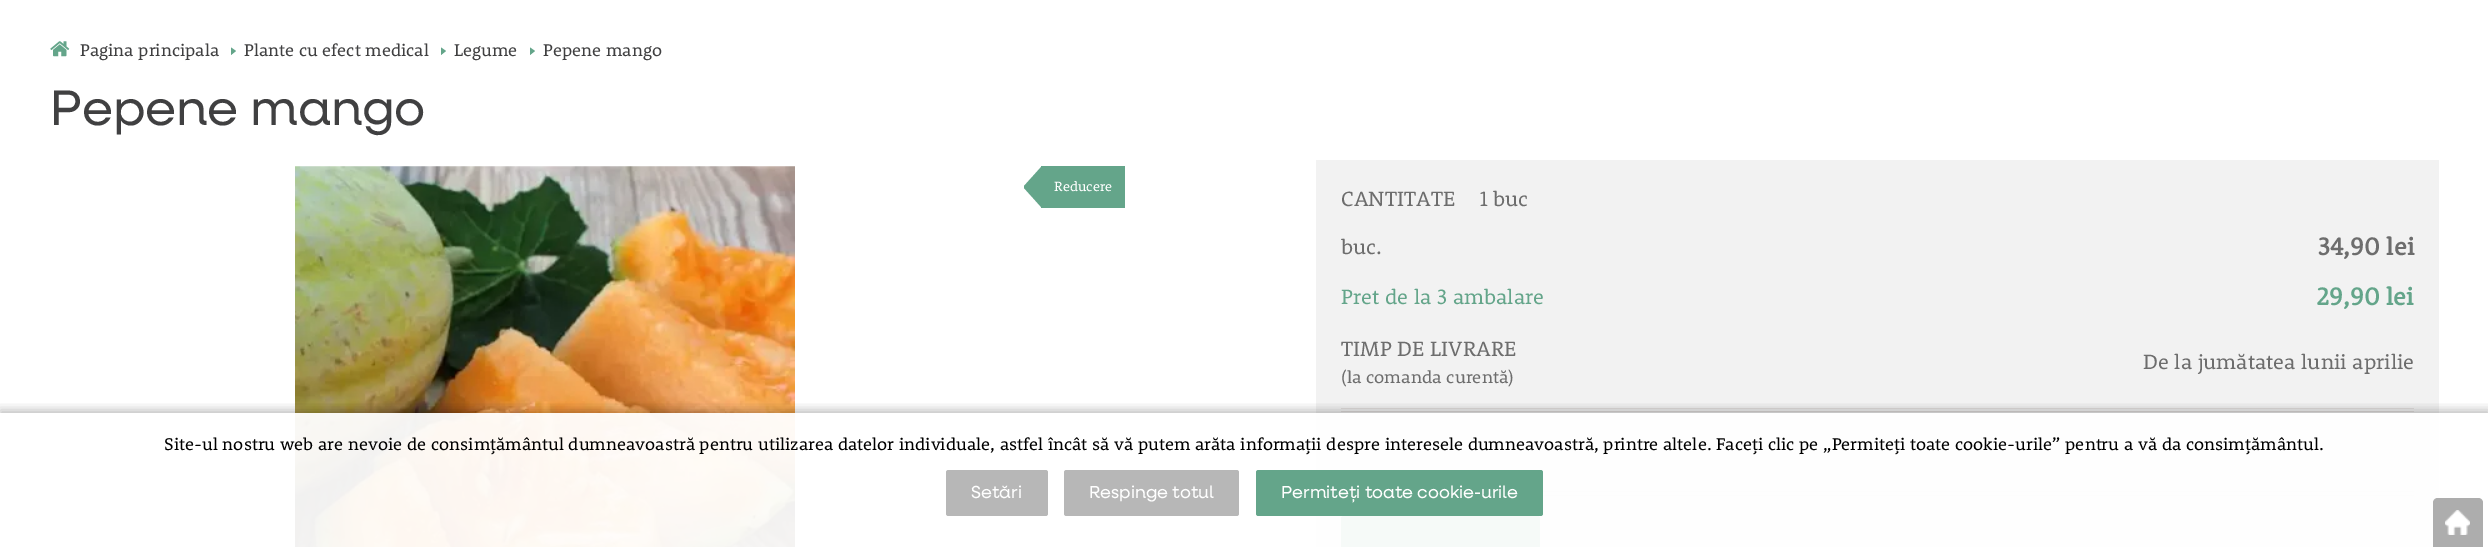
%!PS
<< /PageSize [2488 547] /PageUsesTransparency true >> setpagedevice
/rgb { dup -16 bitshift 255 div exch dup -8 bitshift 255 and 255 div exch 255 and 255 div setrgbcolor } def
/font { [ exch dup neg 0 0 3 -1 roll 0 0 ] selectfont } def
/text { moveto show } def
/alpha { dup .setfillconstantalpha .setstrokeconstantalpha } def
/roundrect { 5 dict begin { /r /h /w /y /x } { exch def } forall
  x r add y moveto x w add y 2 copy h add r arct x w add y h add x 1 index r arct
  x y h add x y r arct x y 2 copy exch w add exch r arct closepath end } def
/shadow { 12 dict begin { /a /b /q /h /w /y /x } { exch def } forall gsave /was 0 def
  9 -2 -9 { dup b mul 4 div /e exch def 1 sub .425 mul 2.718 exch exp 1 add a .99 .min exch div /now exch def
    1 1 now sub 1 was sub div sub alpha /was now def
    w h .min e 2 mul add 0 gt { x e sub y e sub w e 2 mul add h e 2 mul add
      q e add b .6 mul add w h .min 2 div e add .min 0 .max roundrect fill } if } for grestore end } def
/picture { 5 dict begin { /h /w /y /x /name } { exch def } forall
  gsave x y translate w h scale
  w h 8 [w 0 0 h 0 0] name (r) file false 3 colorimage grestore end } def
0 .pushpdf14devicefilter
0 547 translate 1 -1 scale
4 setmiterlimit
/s1 { /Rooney-Regular 17.5 font 16#404041 rgb } def
/s2 { /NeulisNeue-Regular 50 font 16#404041 rgb } def
/s3 { /Rooney-Regular 13.75 font 16#FFFFFF rgb } def
/s4 { /Rooney-Regular 21.25 font 16#6D6D6D rgb } def
/s5 { /Rooney-Bold 25 font 16#6D6D6D rgb } def
/s6 { /Rooney-Regular 21.25 font 16#64A58A rgb } def
/s7 { /Rooney-Bold 25 font 16#64A58A rgb } def
/s8 { /Rooney-Regular 17.75 font 16#6D6D6D rgb } def
/s9 { /Rooney-Regular 17.5 font 16#000000 rgb } def
/s10 { /NeulisNeue-Regular 17.5 font 16#FFFFFF rgb } def
16#FFFFFF rgb
0 0 2488 547 rectfill
(pic1.raw) 50 41 20 16 picture
s1
(Pagina principala) 80 56 text
16#64A58A rgb
231 55 moveto 231 47.5 lineto 236 51 lineto closepath fill
s1
(Plante cu efect medical) 244 56 text
16#64A58A rgb
441 55 moveto 441 47.5 lineto 446 51 lineto closepath fill
s1
(Legume) 454 56 text
16#64A58A rgb
530 55 moveto 530 47.5 lineto 535 51 lineto closepath fill
s1
(Pepene mango) 543 56 text
s2
(Pepene mango) 50 125 text
(pic2.raw) 295 166 500 381 picture
16#64A58A rgb
1041 166 84 42 rectfill
1024 188 moveto 1024 186 lineto 1042 166 lineto 1042 208 lineto closepath fill
s3
(Reducere) 1054 191 text
16#F2F2F2 rgb
1316 160 1123 387 rectfill
s4
(CANTITATE) 1341 206 text
(1 buc) 1480 206 text
(buc.) 1341 254 text
s5
(34,90 lei) 2318 255 text
s6
(Pret de la 3 ambalare) 1341 304 text
s7
(29,90 lei) 2317 305 text
s4
(TIMP DE LIVRARE) 1341 356 text
s8
(\(la comanda curentă\)) 1341 383 text
s4
(De la jumătatea lunii aprilie) 2143 369 text
16#E0DDDC rgb
1341 408 1073 1 rectfill
1341 411 1073 1 rectfill
1543 491 871 1 rectfill
1543 495 871 1 rectfill
16#64A58A rgb
1341 516 199 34 2.5 roundrect fill
gsave
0 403 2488 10 rectclip
16#000000 rgb
0 410 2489 135 0 5 0.25 shadow
grestore
0.94 alpha
16#FFFFFF rgb
295 413 2144 134 rectfill
1 alpha
s9
(Site-ul nostru web are nevoie de consimțământul dumneavoastră pentru utilizarea datelor individuale, astfel încât să vă putem arăta informații despre interesele dumneavoastră, printre altele. Faceți clic pe „Permiteți toate cookie-urile” pentru a vă da consimțământul.) 164 450 text
16#B7B7B7 rgb
946 470 102 46 2.5 roundrect fill
s10
(Setări) 971 498 text
16#B7B7B7 rgb
1064 470 175 46 2.5 roundrect fill
s10
(Respinge totul) 1089 498 text
16#64A58A rgb
1256 470 287 46 2.5 roundrect fill
s10
(Permiteți toate cookie-urile) 1281 498 text
16#ADADAD rgb
2438 498 moveto 2478 498 lineto 2481 498 2483 500 2483 503 curveto 2483 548 lineto 2433 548 lineto 2433 503 lineto 2433 500 2435 498 2438 498 curveto closepath fill
(pic3.raw) 2445 510 25 25 picture
.poppdf14devicefilter showpage
